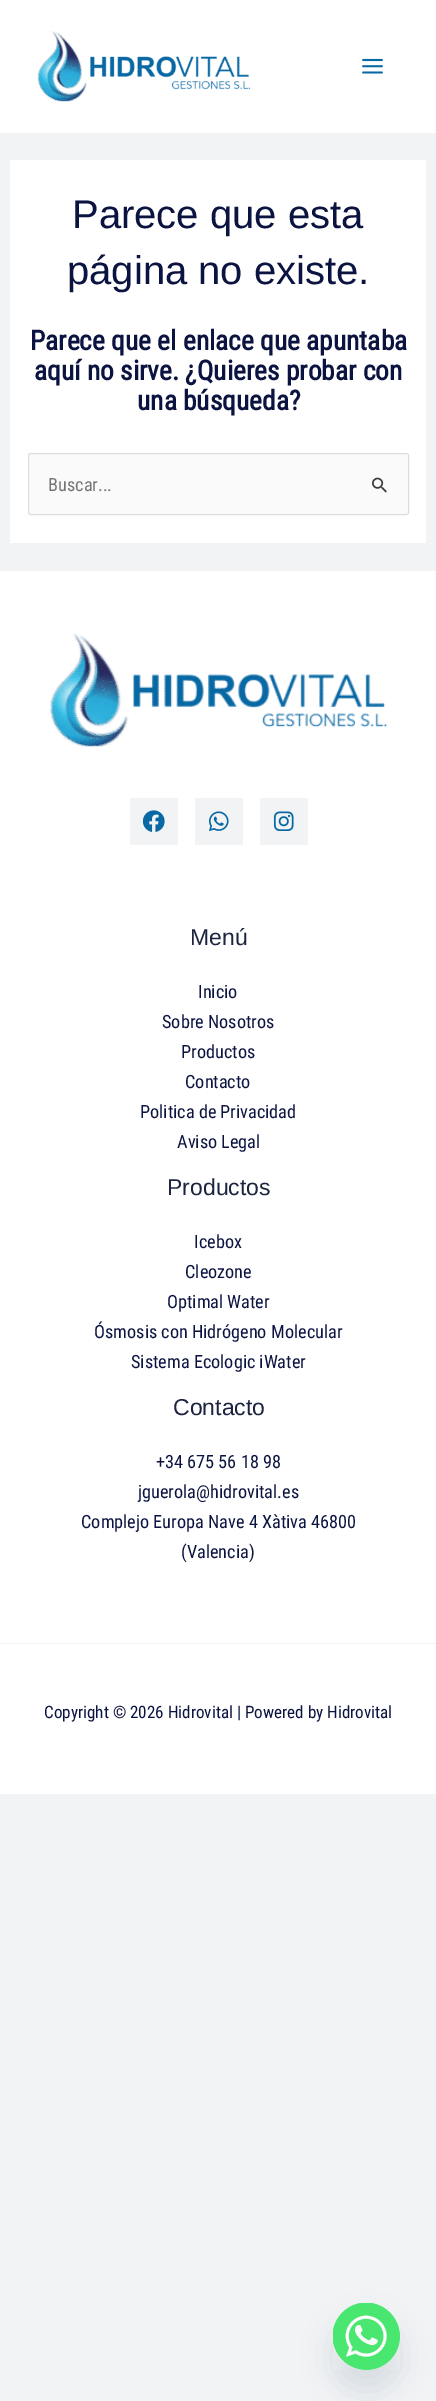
%!PS
<< /PageSize [436 2401] /PageUsesTransparency true >> setpagedevice
/rgb { dup -16 bitshift 255 div exch dup -8 bitshift 255 and 255 div exch 255 and 255 div setrgbcolor } def
/font { [ exch dup neg 0 0 3 -1 roll 0 0 ] selectfont } def
/text { moveto show } def
/alpha { dup .setfillconstantalpha .setstrokeconstantalpha } def
/circle { newpath 0 360 arc closepath } def
/roundrect { 5 dict begin { /r /h /w /y /x } { exch def } forall
  x r add y moveto x w add y 2 copy h add r arct x w add y h add x 1 index r arct
  x y h add x y r arct x y 2 copy exch w add exch r arct closepath end } def
/shadow { 12 dict begin { /a /b /q /h /w /y /x } { exch def } forall gsave /was 0 def
  9 -2 -9 { dup b mul 4 div /e exch def 1 sub .425 mul 2.718 exch exp 1 add a .99 .min exch div /now exch def
    1 1 now sub 1 was sub div sub alpha /was now def
    w h .min e 2 mul add 0 gt { x e sub y e sub w e 2 mul add h e 2 mul add
      q e add b .6 mul add w h .min 2 div e add .min 0 .max roundrect fill } if } for grestore end } def
/picture { 5 dict begin { /h /w /y /x /name } { exch def } forall
  gsave x y translate w h scale
  w h 8 [w 0 0 h 0 0] name (r) file false 3 colorimage grestore end } def
0 .pushpdf14devicefilter
0 2401 translate 1 -1 scale
4 setmiterlimit
/s1 { /LiberationSans-Regular 40 font 16#0B1341 rgb } def
/s2 { /RobotoCondensed-Bold 27.4 font 16#0B1341 rgb } def
/s3 { /RobotoCondensed-Regular 18.25 font 16#757575 rgb } def
/s4 { /LiberationSans-Regular 23 font 16#1C2440 rgb } def
/s5 { /RobotoCondensed-Regular 18.25 font 16#0B1341 rgb } def
/s6 { /RobotoCondensed-Regular 17.1 font 16#0B1341 rgb } def
16#F1F3F4 rgb
0 0 436 2401 rectfill
16#FFFFFF rgb
0 0 436 133 rectfill
(pic1.raw) 37 31 213 71 picture
(pic2.raw) 362 58 21 16 picture
10 160 416 383 rectfill
s1
(Parece que esta) 72 228 text
(página no existe.) 67 284 text
s2
(Parece que el enlace que apuntaba) 30 350 text
(aquí no sirve. ¿Quieres probar con) 34 380 text
(una búsqueda?) 137 410 text
16#FAFAFA rgb
28.5 453.5 380 61 2 roundrect gsave fill grestore
16#DDDDDD rgb
stroke
s3
(Buscar...) 48 491 text
(pic3.raw) 372 477 15 16 picture
16#FFFFFF rgb
0 571 436 1223 rectfill
(pic4.raw) 50 633 337 114 picture
16#F1F3F4 rgb
130 798 48 47 rectfill
(pic5.raw) 143 810 22 22 picture
195 798 48 47 rectfill
(pic6.raw) 209 811 20 20 picture
260 798 48 47 rectfill
(pic7.raw) 273 811 21 20 picture
s4
(Menú) 190 945 text
s5
(Inicio) 198 998 text
(Sobre Nosotros) 162 1028 text
(Productos) 181 1058 text
(Contacto) 185 1088 text
(Politica de Privacidad) 140 1118 text
(Aviso Legal) 177 1148 text
s4
(Productos) 167 1195 text
s5
(Icebox) 194 1248 text
(Cleozone) 185 1278 text
(Optimal Water) 167 1308 text
(Ósmosis con Hidrógeno Molecular) 94 1338 text
(Sistema Ecologic iWater) 131 1368 text
s4
(Contacto) 173 1415 text
s5
(+34 675 56 18 98) 156 1468 text
(jguerola@hidrovital.es) 138 1498 text
(Complejo Europa Nave 4 Xàtiva 46800) 81 1528 text
(\(Valencia\)) 181 1558 text
16#F1F3F4 rgb
0 1643 436 1 rectfill
s6
(Copyright © 2026 Hidrovital | Powered by Hidrovital) 44 1718 text
16#49687E rgb
333 2323 67 67 33.5 15 0.16 shadow
16#49E670 rgb
366.5 2336.5 33.5 circle fill
(pic8.raw) 333 2303 67 67 picture
.poppdf14devicefilter showpage
